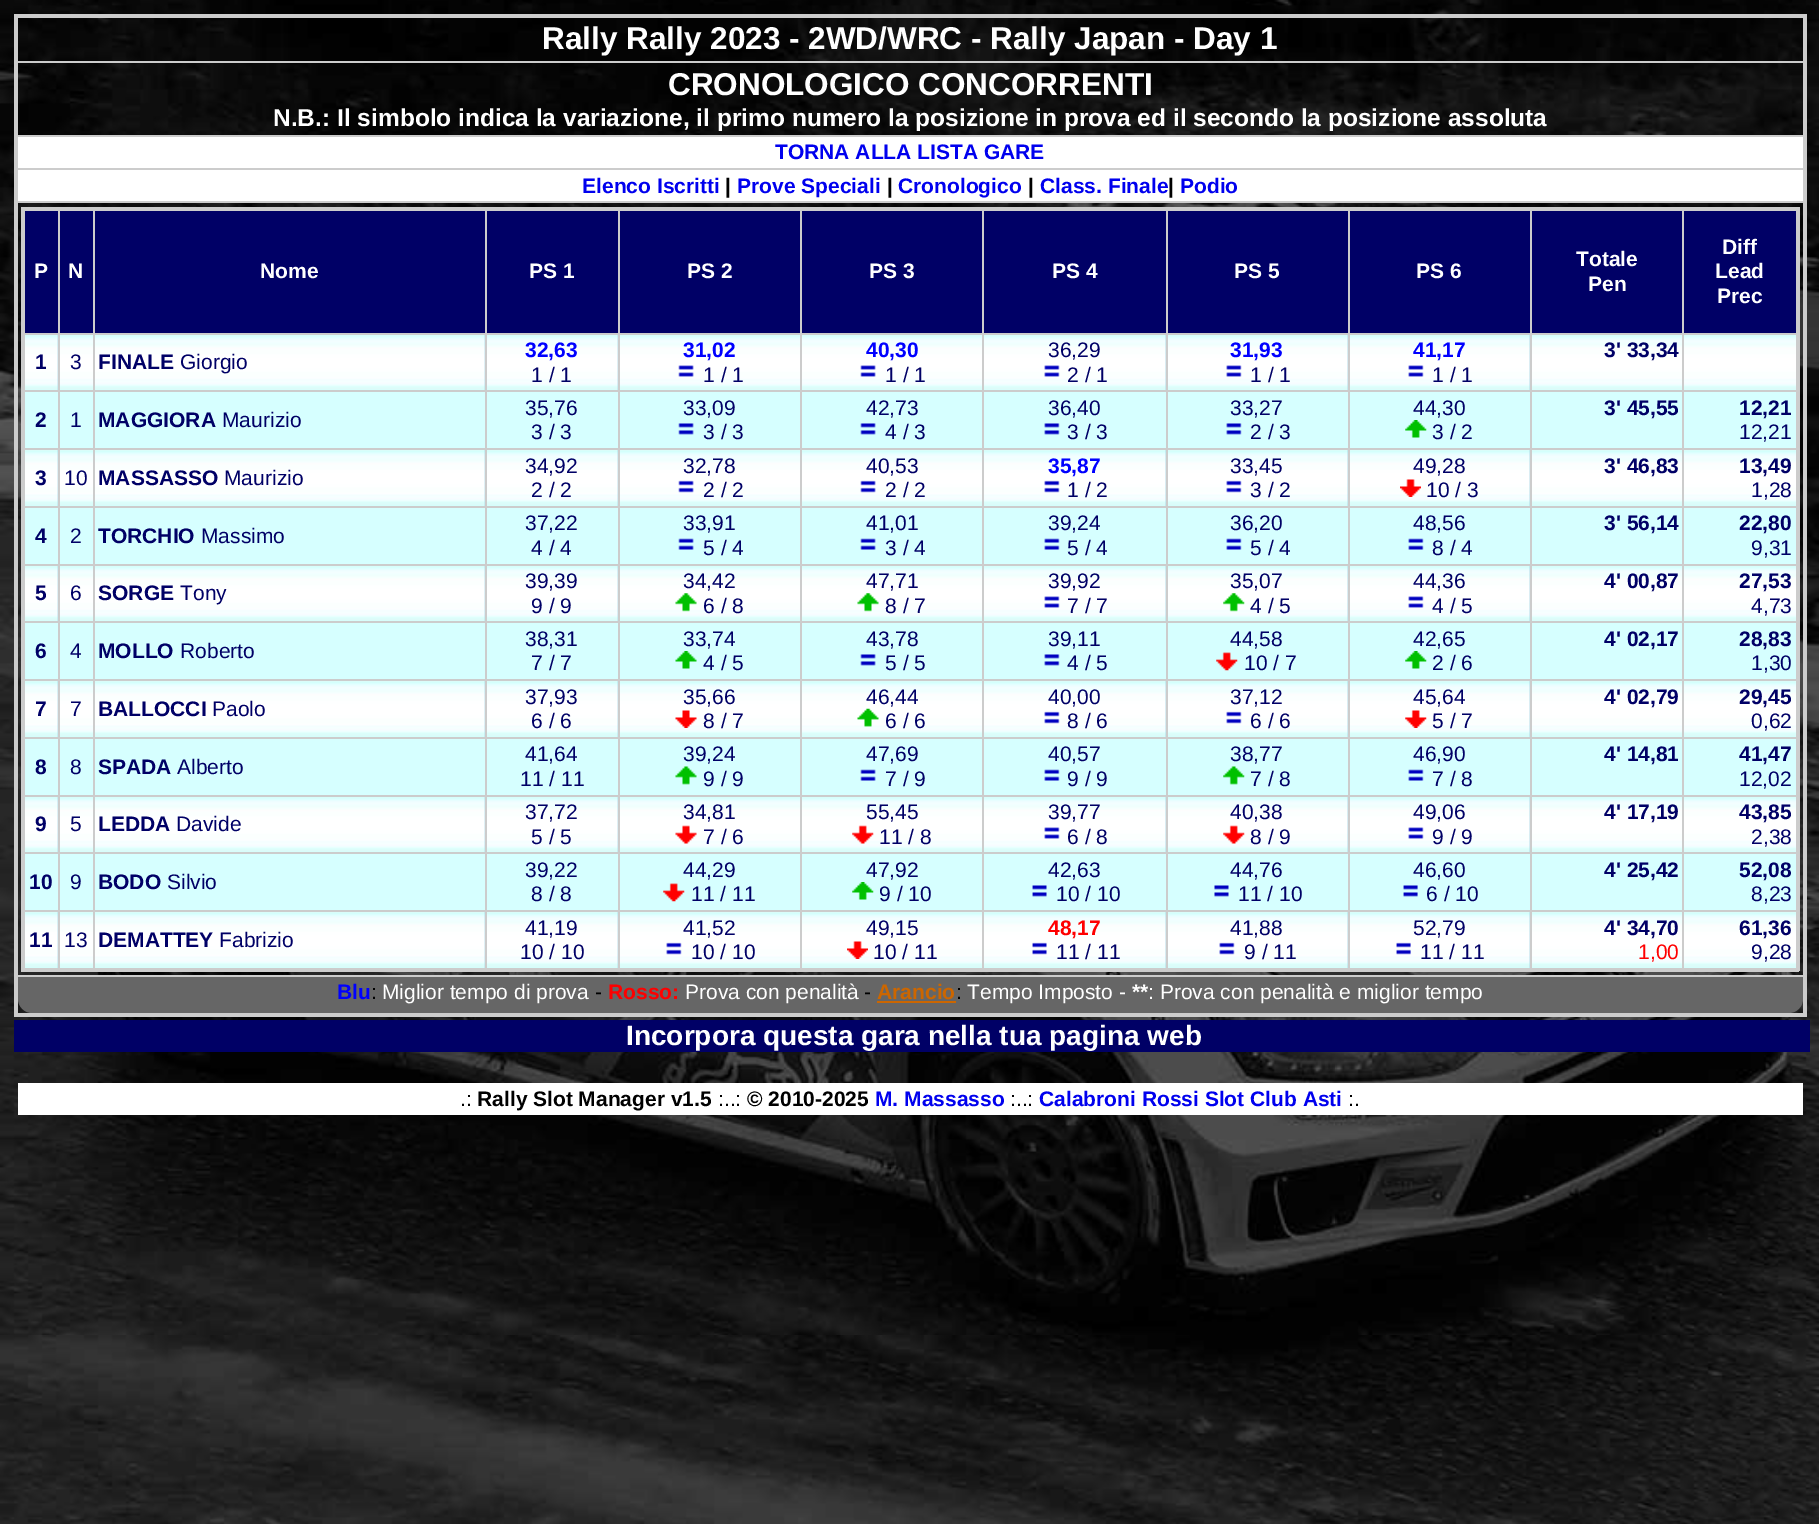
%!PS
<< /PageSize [1819 1524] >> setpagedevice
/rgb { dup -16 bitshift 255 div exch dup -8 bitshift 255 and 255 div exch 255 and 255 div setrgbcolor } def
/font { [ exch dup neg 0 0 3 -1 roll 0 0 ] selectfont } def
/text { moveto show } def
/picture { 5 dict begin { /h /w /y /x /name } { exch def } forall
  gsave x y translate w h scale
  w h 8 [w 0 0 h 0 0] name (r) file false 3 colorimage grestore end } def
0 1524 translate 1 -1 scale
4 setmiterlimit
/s1 { /LiberationSans-Bold 31.5 font 16#FFFFFF rgb } def
/s2 { /LiberationSans-Bold 24.5 font 16#FFFFFF rgb } def
/s3 { /LiberationSans-Bold 21 font 16#0000EE rgb } def
/s4 { /LiberationSans-Bold 21 font 16#000000 rgb } def
/s5 { /LiberationSans-Bold 21 font 16#FFFFFF rgb } def
/s6 { /LiberationSans-Bold 21 font 16#000066 rgb } def
/s7 { /LiberationSans-Regular 21 font 16#000066 rgb } def
/s8 { /LiberationSans-Bold 21 font 16#0000FF rgb } def
/s9 { /LiberationSans-Bold 21 font 16#FF0000 rgb } def
/s10 { /LiberationSans-Regular 21 font 16#FF0000 rgb } def
/s11 { /LiberationSans-Regular 21 font 16#000000 rgb } def
/s12 { /LiberationSans-Regular 21 font 16#FFFFFF rgb } def
/s13 { /LiberationSans-Bold 21 font 16#CC6600 rgb } def
/s14 { /LiberationSans-Bold 28 font 16#FFFFFF rgb } def
16#FFFFFF rgb
0 0 1819 1524 rectfill
(pic1.raw) 0 0 1819 1524 picture
16#CCCCCC rgb
14 14 1792 4 rectfill
1803 14 4 1003 rectfill
14 1013 1792 4 rectfill
14 14 4 1003 rectfill
s1
(Rally Rally 2023 - 2WD/WRC - Rally Japan - Day 1) 542 49 text
16#CCCCCC rgb
18 61 1785 2 rectfill
s1
(CRONOLOGICO CONCORRENTI) 668 95 text
s2
(N.B.: Il simbolo indica la variazione, il primo numero la posizione in prova ed il secondo la posizione assoluta) 273 126 text
18 137 1785 31 rectfill
16#CCCCCC rgb
18 135 1785 2 rectfill
s3
(TORNA ALLA LISTA GARE) 775 159 text
16#FFFFFF rgb
18 170 1785 31 rectfill
16#CCCCCC rgb
18 168 1785 2 rectfill
s3
(Elenco Iscritti) 582 193 text
s4
(|) 725 193 text
s3
(Prove Speciali) 737 193 text
s4
(|) 887 193 text
s3
(Cronologico) 898 193 text
s4
(|) 1028 193 text
s3
(Class. Finale) 1040 193 text
s4
(|) 1168 193 text
s3
(Podio) 1180 193 text
16#CCCCCC rgb
18 201 1785 2 rectfill
16#000066 rgb
25 211 1771 122 rectfill
16#CCCCCC rgb
1682 333 117 2 rectfill
1682 390 117 2 rectfill
16#D6FFFF rgb
25 392 1771 56 rectfill
16#CCCCCC rgb
1682 448 117 2 rectfill
1682 506 117 2 rectfill
16#D6FFFF rgb
25 508 1771 56 rectfill
16#CCCCCC rgb
1682 564 117 2 rectfill
1682 621 117 2 rectfill
16#D6FFFF rgb
25 623 1771 56 rectfill
16#CCCCCC rgb
1682 679 117 2 rectfill
1682 737 117 2 rectfill
16#D6FFFF rgb
25 739 1771 56 rectfill
16#CCCCCC rgb
1682 795 117 2 rectfill
1682 852 117 2 rectfill
16#D6FFFF rgb
25 854 1771 56 rectfill
16#CCCCCC rgb
1682 910 117 2 rectfill
1682 910 2 61 rectfill
1530 910 154 2 rectfill
1682 852 2 60 rectfill
1530 852 154 2 rectfill
1682 795 2 59 rectfill
1530 795 154 2 rectfill
1682 737 2 59 rectfill
1530 737 154 2 rectfill
1682 679 2 60 rectfill
1530 679 154 2 rectfill
1682 621 2 60 rectfill
1530 621 154 2 rectfill
1682 564 2 59 rectfill
1530 564 154 2 rectfill
1682 506 2 59 rectfill
1530 506 154 2 rectfill
1682 448 2 60 rectfill
1530 448 154 2 rectfill
1682 390 2 60 rectfill
1530 390 154 2 rectfill
1682 333 2 59 rectfill
1530 333 154 2 rectfill
(pic9.raw) 984 335 182 55 picture
(pic11.raw) 1165 335 183 55 picture
(pic11.raw) 1347 335 183 55 picture
(pic12.raw) 1529 335 153 55 picture
(pic24.raw) 984 450 182 56 picture
(pic26.raw) 1165 450 183 56 picture
(pic26.raw) 1347 450 183 56 picture
(pic28.raw) 1529 450 153 56 picture
(pic9.raw) 984 566 182 55 picture
(pic11.raw) 1165 566 183 55 picture
(pic11.raw) 1347 566 183 55 picture
(pic12.raw) 1529 566 153 55 picture
(pic24.raw) 984 681 182 56 picture
(pic26.raw) 1165 681 183 56 picture
(pic26.raw) 1347 681 183 56 picture
(pic28.raw) 1529 681 153 56 picture
(pic9.raw) 984 797 182 55 picture
(pic11.raw) 1165 797 183 55 picture
(pic11.raw) 1347 797 183 55 picture
(pic12.raw) 1529 797 153 55 picture
(pic24.raw) 984 912 182 56 picture
(pic26.raw) 1165 912 183 56 picture
(pic26.raw) 1347 912 183 56 picture
(pic28.raw) 1529 912 153 56 picture
1530 910 2 61 rectfill
1348 910 183 2 rectfill
1530 852 2 60 rectfill
1348 852 183 2 rectfill
1530 795 2 59 rectfill
1348 795 183 2 rectfill
1530 737 2 59 rectfill
1348 737 183 2 rectfill
1530 679 2 60 rectfill
1348 679 183 2 rectfill
1530 621 2 60 rectfill
1348 621 183 2 rectfill
1530 564 2 59 rectfill
1348 564 183 2 rectfill
1530 506 2 59 rectfill
1348 506 183 2 rectfill
1530 448 2 60 rectfill
1348 448 183 2 rectfill
1530 390 2 60 rectfill
1348 390 183 2 rectfill
1530 333 2 59 rectfill
1348 333 183 2 rectfill
1348 910 2 61 rectfill
1166 910 183 2 rectfill
1348 852 2 60 rectfill
1166 852 183 2 rectfill
1348 795 2 59 rectfill
1166 795 183 2 rectfill
1348 737 2 59 rectfill
1166 737 183 2 rectfill
1348 679 2 60 rectfill
1166 679 183 2 rectfill
1348 621 2 60 rectfill
1166 621 183 2 rectfill
1348 564 2 59 rectfill
1166 564 183 2 rectfill
1348 506 2 59 rectfill
1166 506 183 2 rectfill
1348 448 2 60 rectfill
1166 448 183 2 rectfill
1348 390 2 60 rectfill
1166 390 183 2 rectfill
1348 333 2 59 rectfill
1166 333 183 2 rectfill
1166 910 2 61 rectfill
982 910 185 2 rectfill
1166 852 2 60 rectfill
982 852 185 2 rectfill
1166 795 2 59 rectfill
982 795 185 2 rectfill
1166 737 2 59 rectfill
982 737 185 2 rectfill
1166 679 2 60 rectfill
982 679 185 2 rectfill
1166 621 2 60 rectfill
982 621 185 2 rectfill
1166 564 2 59 rectfill
982 564 185 2 rectfill
1166 506 2 59 rectfill
982 506 185 2 rectfill
1166 448 2 60 rectfill
982 448 185 2 rectfill
1166 390 2 60 rectfill
982 390 185 2 rectfill
1166 333 2 59 rectfill
982 333 185 2 rectfill
982 910 2 61 rectfill
800 910 184 2 rectfill
982 852 2 60 rectfill
800 852 184 2 rectfill
982 795 2 59 rectfill
800 795 184 2 rectfill
982 737 2 59 rectfill
800 737 184 2 rectfill
982 679 2 60 rectfill
800 679 184 2 rectfill
982 621 2 60 rectfill
800 621 184 2 rectfill
982 564 2 59 rectfill
800 564 184 2 rectfill
982 506 2 59 rectfill
800 506 184 2 rectfill
982 448 2 60 rectfill
800 448 184 2 rectfill
982 390 2 60 rectfill
800 390 184 2 rectfill
982 333 2 59 rectfill
800 333 184 2 rectfill
800 910 2 61 rectfill
618 910 184 2 rectfill
800 852 2 60 rectfill
618 852 184 2 rectfill
800 795 2 59 rectfill
618 795 184 2 rectfill
800 737 2 59 rectfill
618 737 184 2 rectfill
800 679 2 60 rectfill
618 679 184 2 rectfill
800 621 2 60 rectfill
618 621 184 2 rectfill
800 564 2 59 rectfill
618 564 184 2 rectfill
800 506 2 59 rectfill
618 506 184 2 rectfill
800 448 2 60 rectfill
618 448 184 2 rectfill
800 390 2 60 rectfill
618 390 184 2 rectfill
800 333 2 59 rectfill
618 333 184 2 rectfill
(pic4.raw) 95 335 390 55 picture
(pic5.raw) 484 335 134 55 picture
(pic6.raw) 617 335 183 55 picture
(pic19.raw) 95 450 390 56 picture
(pic20.raw) 484 450 134 56 picture
(pic21.raw) 617 450 183 56 picture
(pic4.raw) 95 566 390 55 picture
(pic5.raw) 484 566 134 55 picture
(pic6.raw) 617 566 183 55 picture
(pic19.raw) 95 681 390 56 picture
(pic20.raw) 484 681 134 56 picture
(pic21.raw) 617 681 183 56 picture
(pic4.raw) 95 797 390 55 picture
(pic5.raw) 484 797 134 55 picture
(pic6.raw) 617 797 183 55 picture
(pic19.raw) 95 912 390 56 picture
(pic20.raw) 484 912 134 56 picture
(pic21.raw) 617 912 183 56 picture
618 910 2 61 rectfill
485 910 135 2 rectfill
618 852 2 60 rectfill
485 852 135 2 rectfill
618 795 2 59 rectfill
485 795 135 2 rectfill
618 737 2 59 rectfill
485 737 135 2 rectfill
618 679 2 60 rectfill
485 679 135 2 rectfill
618 621 2 60 rectfill
485 621 135 2 rectfill
618 564 2 59 rectfill
485 564 135 2 rectfill
618 506 2 59 rectfill
485 506 135 2 rectfill
618 448 2 60 rectfill
485 448 135 2 rectfill
618 390 2 60 rectfill
485 390 135 2 rectfill
618 333 2 59 rectfill
485 333 135 2 rectfill
485 910 2 61 rectfill
93 910 394 2 rectfill
485 852 2 60 rectfill
93 852 394 2 rectfill
485 795 2 59 rectfill
93 795 394 2 rectfill
485 737 2 59 rectfill
93 737 394 2 rectfill
485 679 2 60 rectfill
93 679 394 2 rectfill
485 621 2 60 rectfill
93 621 394 2 rectfill
485 564 2 59 rectfill
93 564 394 2 rectfill
485 506 2 59 rectfill
93 506 394 2 rectfill
485 448 2 60 rectfill
93 448 394 2 rectfill
485 390 2 60 rectfill
93 390 394 2 rectfill
485 333 2 59 rectfill
93 333 394 2 rectfill
93 910 2 61 rectfill
58 910 37 2 rectfill
93 852 2 60 rectfill
58 852 37 2 rectfill
93 795 2 59 rectfill
58 795 37 2 rectfill
93 737 2 59 rectfill
58 737 37 2 rectfill
93 679 2 60 rectfill
58 679 37 2 rectfill
93 621 2 60 rectfill
58 621 37 2 rectfill
93 564 2 59 rectfill
58 564 37 2 rectfill
93 506 2 59 rectfill
58 506 37 2 rectfill
93 448 2 60 rectfill
58 448 37 2 rectfill
93 390 2 60 rectfill
58 390 37 2 rectfill
93 333 2 59 rectfill
58 333 37 2 rectfill
(pic2.raw) 25 335 33 55 picture
(pic3.raw) 57 335 36 55 picture
(pic17.raw) 25 450 33 56 picture
(pic18.raw) 57 450 36 56 picture
(pic2.raw) 25 566 33 55 picture
(pic3.raw) 57 566 36 55 picture
(pic17.raw) 25 681 33 56 picture
(pic18.raw) 57 681 36 56 picture
(pic2.raw) 25 797 33 55 picture
(pic3.raw) 57 797 36 55 picture
(pic17.raw) 25 912 33 56 picture
(pic18.raw) 57 912 36 56 picture
58 910 2 61 rectfill
23 910 37 2 rectfill
58 852 2 60 rectfill
23 852 37 2 rectfill
58 795 2 59 rectfill
23 795 37 2 rectfill
58 737 2 59 rectfill
23 737 37 2 rectfill
58 679 2 60 rectfill
23 679 37 2 rectfill
58 621 2 60 rectfill
23 621 37 2 rectfill
58 564 2 59 rectfill
23 564 37 2 rectfill
58 506 2 59 rectfill
23 506 37 2 rectfill
58 448 2 60 rectfill
23 448 37 2 rectfill
58 390 2 60 rectfill
23 390 37 2 rectfill
58 333 2 59 rectfill
23 333 37 2 rectfill
58 208 2 126 rectfill
93 208 2 126 rectfill
485 208 2 126 rectfill
618 208 2 126 rectfill
800 208 2 126 rectfill
982 208 2 126 rectfill
1166 208 2 126 rectfill
1348 208 2 126 rectfill
1530 208 2 126 rectfill
1682 208 2 126 rectfill
21 207 1778 4 rectfill
1796 207 4 764 rectfill
21 968 1778 4 rectfill
21 207 4 764 rectfill
s5
(P) 34 278 text
(N) 68 278 text
(Nome) 260 278 text
(PS 1) 529 278 text
(PS 2) 687 278 text
(PS 3) 869 278 text
(PS 4) 1052 278 text
(PS 5) 1234 278 text
(PS 6) 1416 278 text
(Totale) 1576 266 text
(Pen) 1588 291 text
(Diff) 1722 254 text
(Lead) 1715 278 text
(Prec) 1717 303 text
s6
(1) 35 369 text
s7
(3) 70 369 text
s6
(FINALE) 98 369 text
s7
(Giorgio) 180 369 text
s8
(32,63) 525 357 text
s7
(1 / 1) 531 382 text
s8
(31,02) 683 357 text
(pic7.raw) 678 365 16 12 picture
s7
(1 / 1) 703 382 text
(pic8.raw) 802 335 180 55 picture
s8
(40,30) 866 357 text
(pic7.raw) 860 365 16 12 picture
s7
(1 / 1) 885 382 text
(36,29) 1048 357 text
(pic10.raw) 1044 365 16 12 picture
(2 / 1) 1067 382 text
s8
(31,93) 1230 357 text
(pic10.raw) 1226 365 16 12 picture
s7
(1 / 1) 1250 382 text
s8
(41,17) 1413 357 text
(pic10.raw) 1408 365 16 12 picture
s7
(1 / 1) 1432 382 text
s6
(3' 33,34) 1604 357 text
(pic13.raw) 1684 335 112 55 picture
(2) 35 427 text
s7
(1) 70 427 text
s6
(MAGGIORA) 98 427 text
s7
(Maurizio) 222 427 text
(35,76) 525 415 text
(3 / 3) 531 439 text
(33,09) 683 415 text
(pic14.raw) 678 423 16 12 picture
(3 / 3) 703 439 text
(42,73) 866 415 text
(pic14.raw) 860 423 16 12 picture
(4 / 3) 885 439 text
(36,40) 1048 415 text
(pic15.raw) 1044 423 16 12 picture
(3 / 3) 1067 439 text
(33,27) 1230 415 text
(pic15.raw) 1226 423 16 12 picture
(2 / 3) 1250 439 text
(44,30) 1413 415 text
(pic16.raw) 1405 420 22 18 picture
(3 / 2) 1432 439 text
s6
(3' 45,55) 1604 415 text
(12,21) 1739 415 text
s7
(12,21) 1739 439 text
s6
(3) 35 485 text
s7
(10) 64 485 text
s6
(MASSASSO) 98 485 text
s7
(Maurizio) 224 485 text
(34,92) 525 473 text
(2 / 2) 531 497 text
(32,78) 683 473 text
(pic22.raw) 678 480 16 13 picture
(2 / 2) 703 497 text
(pic23.raw) 802 450 180 56 picture
(40,53) 866 473 text
(pic22.raw) 860 480 16 13 picture
(2 / 2) 885 497 text
s8
(35,87) 1048 473 text
(pic25.raw) 1044 480 16 13 picture
s7
(1 / 2) 1067 497 text
(33,45) 1230 473 text
(pic25.raw) 1226 480 16 13 picture
(3 / 2) 1250 497 text
(49,28) 1413 473 text
(pic27.raw) 1400 479 21 18 picture
(10 / 3) 1426 497 text
s6
(3' 46,83) 1604 473 text
(pic29.raw) 1684 450 112 56 picture
(13,49) 1739 473 text
s7
(1,28) 1751 497 text
s6
(4) 35 543 text
s7
(2) 70 543 text
s6
(TORCHIO) 98 543 text
s7
(Massimo) 201 543 text
(37,22) 525 530 text
(4 / 4) 531 555 text
(33,91) 683 530 text
(pic30.raw) 678 538 16 12 picture
(5 / 4) 703 555 text
(41,01) 866 530 text
(pic30.raw) 860 538 16 12 picture
(3 / 4) 885 555 text
(39,24) 1048 530 text
(pic31.raw) 1044 538 16 12 picture
(5 / 4) 1067 555 text
(36,20) 1230 530 text
(pic31.raw) 1226 538 16 12 picture
(5 / 4) 1250 555 text
(48,56) 1413 530 text
(pic31.raw) 1408 538 16 12 picture
(8 / 4) 1432 555 text
s6
(3' 56,14) 1604 530 text
(22,80) 1739 530 text
s7
(9,31) 1751 555 text
s6
(5) 35 600 text
s7
(6) 70 600 text
s6
(SORGE) 98 600 text
s7
(Tony) 180 600 text
(39,39) 525 588 text
(9 / 9) 531 613 text
(34,42) 683 588 text
(pic32.raw) 675 593 22 19 picture
(6 / 8) 703 613 text
(pic8.raw) 802 566 180 55 picture
(47,71) 866 588 text
(pic32.raw) 857 593 22 19 picture
(8 / 7) 885 613 text
(39,92) 1048 588 text
(pic10.raw) 1044 596 16 12 picture
(7 / 7) 1067 613 text
(35,07) 1230 588 text
(pic33.raw) 1223 593 22 19 picture
(4 / 5) 1250 613 text
(44,36) 1413 588 text
(pic10.raw) 1408 596 16 12 picture
(4 / 5) 1432 613 text
s6
(4' 00,87) 1604 588 text
(pic13.raw) 1684 566 112 55 picture
(27,53) 1739 588 text
s7
(4,73) 1751 613 text
s6
(6) 35 658 text
s7
(4) 70 658 text
s6
(MOLLO) 98 658 text
s7
(Roberto) 180 658 text
(38,31) 525 646 text
(7 / 7) 531 670 text
(33,74) 683 646 text
(pic34.raw) 675 651 22 18 picture
(4 / 5) 703 670 text
(43,78) 866 646 text
(pic14.raw) 860 654 16 12 picture
(5 / 5) 885 670 text
(39,11) 1048 646 text
(pic15.raw) 1044 654 16 12 picture
(4 / 5) 1067 670 text
(44,58) 1230 646 text
(pic35.raw) 1216 652 22 19 picture
(10 / 7) 1244 670 text
(42,65) 1413 646 text
(pic16.raw) 1405 651 22 18 picture
(2 / 6) 1432 670 text
s6
(4' 02,17) 1604 646 text
(28,83) 1739 646 text
s7
(1,30) 1751 670 text
s6
(7) 35 716 text
s7
(7) 70 716 text
s6
(BALLOCCI) 98 716 text
s7
(Paolo) 212 716 text
(37,93) 525 704 text
(6 / 6) 531 728 text
(35,66) 683 704 text
(pic36.raw) 675 710 22 18 picture
(8 / 7) 703 728 text
(pic23.raw) 802 681 180 56 picture
(46,44) 866 704 text
(pic37.raw) 857 708 22 19 picture
(6 / 6) 885 728 text
(40,00) 1048 704 text
(pic25.raw) 1044 711 16 13 picture
(8 / 6) 1067 728 text
(37,12) 1230 704 text
(pic25.raw) 1226 711 16 13 picture
(6 / 6) 1250 728 text
(45,64) 1413 704 text
(pic38.raw) 1405 710 22 18 picture
(5 / 7) 1432 728 text
s6
(4' 02,79) 1604 704 text
(pic29.raw) 1684 681 112 56 picture
(29,45) 1739 704 text
s7
(0,62) 1751 728 text
s6
(8) 35 774 text
s7
(8) 70 774 text
s6
(SPADA) 98 774 text
s7
(Alberto) 177 774 text
(41,64) 525 761 text
(11 / 11) 520 786 text
(39,24) 683 761 text
(pic39.raw) 675 766 22 19 picture
(9 / 9) 703 786 text
(47,69) 866 761 text
(pic30.raw) 860 769 16 12 picture
(7 / 9) 885 786 text
(40,57) 1048 761 text
(pic31.raw) 1044 769 16 12 picture
(9 / 9) 1067 786 text
(38,77) 1230 761 text
(pic40.raw) 1223 766 22 19 picture
(7 / 8) 1250 786 text
(46,90) 1413 761 text
(pic31.raw) 1408 769 16 12 picture
(7 / 8) 1432 786 text
s6
(4' 14,81) 1604 761 text
(41,47) 1739 761 text
s7
(12,02) 1739 786 text
s6
(9) 35 831 text
s7
(5) 70 831 text
s6
(LEDDA) 98 831 text
s7
(Davide) 176 831 text
(37,72) 525 819 text
(5 / 5) 531 844 text
(34,81) 683 819 text
(pic41.raw) 675 825 22 19 picture
(7 / 6) 703 844 text
(pic8.raw) 802 797 180 55 picture
(55,45) 866 819 text
(pic42.raw) 852 825 22 19 picture
(11 / 8) 879 844 text
(39,77) 1048 819 text
(pic10.raw) 1044 827 16 12 picture
(6 / 8) 1067 844 text
(40,38) 1230 819 text
(pic42.raw) 1223 825 22 19 picture
(8 / 9) 1250 844 text
(49,06) 1413 819 text
(pic10.raw) 1408 827 16 12 picture
(9 / 9) 1432 844 text
s6
(4' 17,19) 1604 819 text
(pic13.raw) 1684 797 112 55 picture
(43,85) 1739 819 text
s7
(2,38) 1751 844 text
s6
(10) 29 889 text
s7
(9) 70 889 text
s6
(BODO) 98 889 text
s7
(Silvio) 167 889 text
(39,22) 525 877 text
(8 / 8) 531 901 text
(44,29) 683 877 text
(pic35.raw) 663 883 22 19 picture
(11 / 11) 691 901 text
(47,92) 866 877 text
(pic43.raw) 852 882 22 18 picture
(9 / 10) 879 901 text
(42,63) 1048 877 text
(pic44.raw) 1032 885 15 12 picture
(10 / 10) 1056 901 text
(44,76) 1230 877 text
(pic45.raw) 1214 885 15 12 picture
(11 / 10) 1238 901 text
(46,60) 1413 877 text
(pic46.raw) 1403 885 15 12 picture
(6 / 10) 1426 901 text
s6
(4' 25,42) 1604 877 text
(52,08) 1739 877 text
s7
(8,23) 1751 901 text
s6
(11) 29 947 text
s7
(13) 64 947 text
s6
(DEMATTEY) 98 947 text
s7
(Fabrizio) 219 947 text
(41,19) 525 935 text
(10 / 10) 520 959 text
(41,52) 683 935 text
(pic25.raw) 666 942 16 13 picture
(10 / 10) 691 959 text
(pic23.raw) 802 912 180 56 picture
(49,15) 866 935 text
(pic27.raw) 847 941 21 18 picture
(10 / 11) 873 959 text
s9
(48,17) 1048 935 text
(pic47.raw) 1032 942 15 13 picture
s7
(11 / 11) 1056 959 text
(41,88) 1230 935 text
(pic25.raw) 1219 942 16 13 picture
(9 / 11) 1244 959 text
(52,79) 1413 935 text
(pic48.raw) 1396 942 15 13 picture
(11 / 11) 1420 959 text
s6
(4' 34,70) 1604 935 text
s10
(1,00) 1638 959 text
(pic29.raw) 1684 912 112 56 picture
s6
(61,36) 1739 935 text
s7
(9,28) 1751 959 text
16#666666 rgb
18 977 moveto 1803 977 lineto 1803 999 lineto 1803 1006.5 1796.5 1013 1789 1013 curveto 32 1013 lineto 24.5 1013 18 1006.5 18 999 curveto closepath fill
16#CCCCCC rgb
18 975 1785 2 rectfill
s8
(Blu) 337 999 text
s11
(:) 371 999 text
s12
(Miglior tempo di prova) 382 999 text
s11
(-) 595 999 text
s9
(Rosso:) 608 999 text
s12
(Prova con penalità) 685 999 text
s11
(-) 864 999 text
s13
(Arancio) 877 999 text
877 1001 79 2 rectfill
s11
(:) 956 999 text
s12
(Tempo Imposto -) 967 999 text
s5
(**) 1132 999 text
s12
(: Prova con penalità e miglior tempo) 1148 999 text
16#000066 rgb
14 1020 1796 32 rectfill
s14
(Incorpora questa gara nella tua pagina web) 626 1045 text
18 1083 1785 32 rectfill
s11
(.:) 460 1106 text
s4
(Rally Slot Manager v1.5) 477 1106 text
s11
(:..:) 718 1106 text
s4
(© 2010-2025) 747 1106 text
s3
(M. Massasso) 875 1106 text
s11
(:..:) 1010 1106 text
s3
(Calabroni Rossi Slot Club Asti) 1039 1106 text
s11
(:.) 1348 1106 text
showpage
